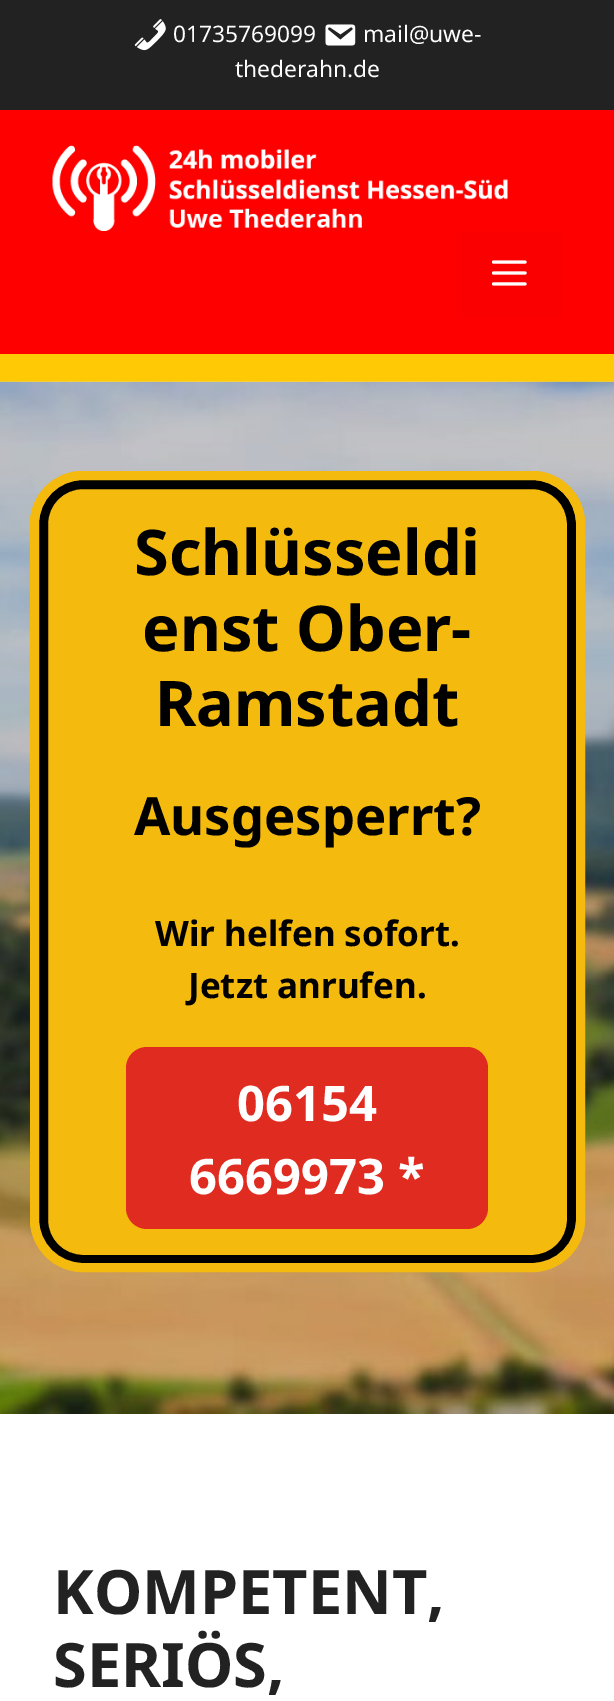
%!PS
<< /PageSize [614 1701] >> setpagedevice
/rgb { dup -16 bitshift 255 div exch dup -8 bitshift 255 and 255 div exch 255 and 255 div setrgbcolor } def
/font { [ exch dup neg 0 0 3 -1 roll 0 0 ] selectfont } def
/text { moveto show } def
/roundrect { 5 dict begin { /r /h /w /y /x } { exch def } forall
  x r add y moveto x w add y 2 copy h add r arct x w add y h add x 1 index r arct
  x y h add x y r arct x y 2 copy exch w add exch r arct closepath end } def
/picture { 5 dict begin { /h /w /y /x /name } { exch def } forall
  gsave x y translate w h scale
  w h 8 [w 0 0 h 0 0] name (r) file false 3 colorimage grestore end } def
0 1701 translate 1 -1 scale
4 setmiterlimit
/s1 { /NotoSans-Regular 22.75 font 16#FFFFFF rgb } def
/s2 { /NotoSans-Bold 63 font 16#000000 rgb } def
/s3 { /NotoSans-Bold 52.5 font 16#000000 rgb } def
/s4 { /NotoSans-Bold 35 font 16#000000 rgb } def
/s5 { /NotoSans-Bold 49 font 16#FFFFFF rgb } def
/s6 { /NotoSans-Bold 61.25 font 16#222222 rgb } def
16#222222 rgb
0 0 614 1701 rectfill
(pic1.raw) 134 19 32 32 picture
s1
(01735769099) 173 42 text
(pic2.raw) 325 24 31 22 picture
(mail@uwe-) 363 42 text
(thederahn.de) 235 77 text
16#FF0000 rgb
0 110 614 244 rectfill
(pic3.raw) 52 145 456 86 picture
16#FA0000 rgb
457 231 105 88 rectfill
(pic4.raw) 492 260 35 26 picture
16#FFCA05 rgb
0 354 614 28 rectfill
16#FFFFFF rgb
0 1414 614 287 rectfill
(pic5.raw) 0 381 614 1033 picture
16#F4BA0E rgb
30 471 555 801 53 roundrect fill
16#000000 rgb
9 setlinewidth
43.5 484.5 528 775 39.5 roundrect stroke
16#F4BA0E rgb
34.5 475.5 546 792 48.5 roundrect stroke
s2
(Schlüsseldi) 134 575 text
(enst Ober-) 142 651 text
(Ramstadt) 155 726 text
s3
(Ausgesperrt?) 134 835 text
s4
(Wir helfen sofort.) 155 946 text
(Jetzt anrufen.) 188 998 text
16#E02B20 rgb
126 1047 362 182 21 roundrect fill
s5
(06154) 237 1121 text
(6669973 *) 189 1194 text
s6
(KOMPETENT,) 53 1614 text
(SERIÖS,) 53 1687 text
showpage
